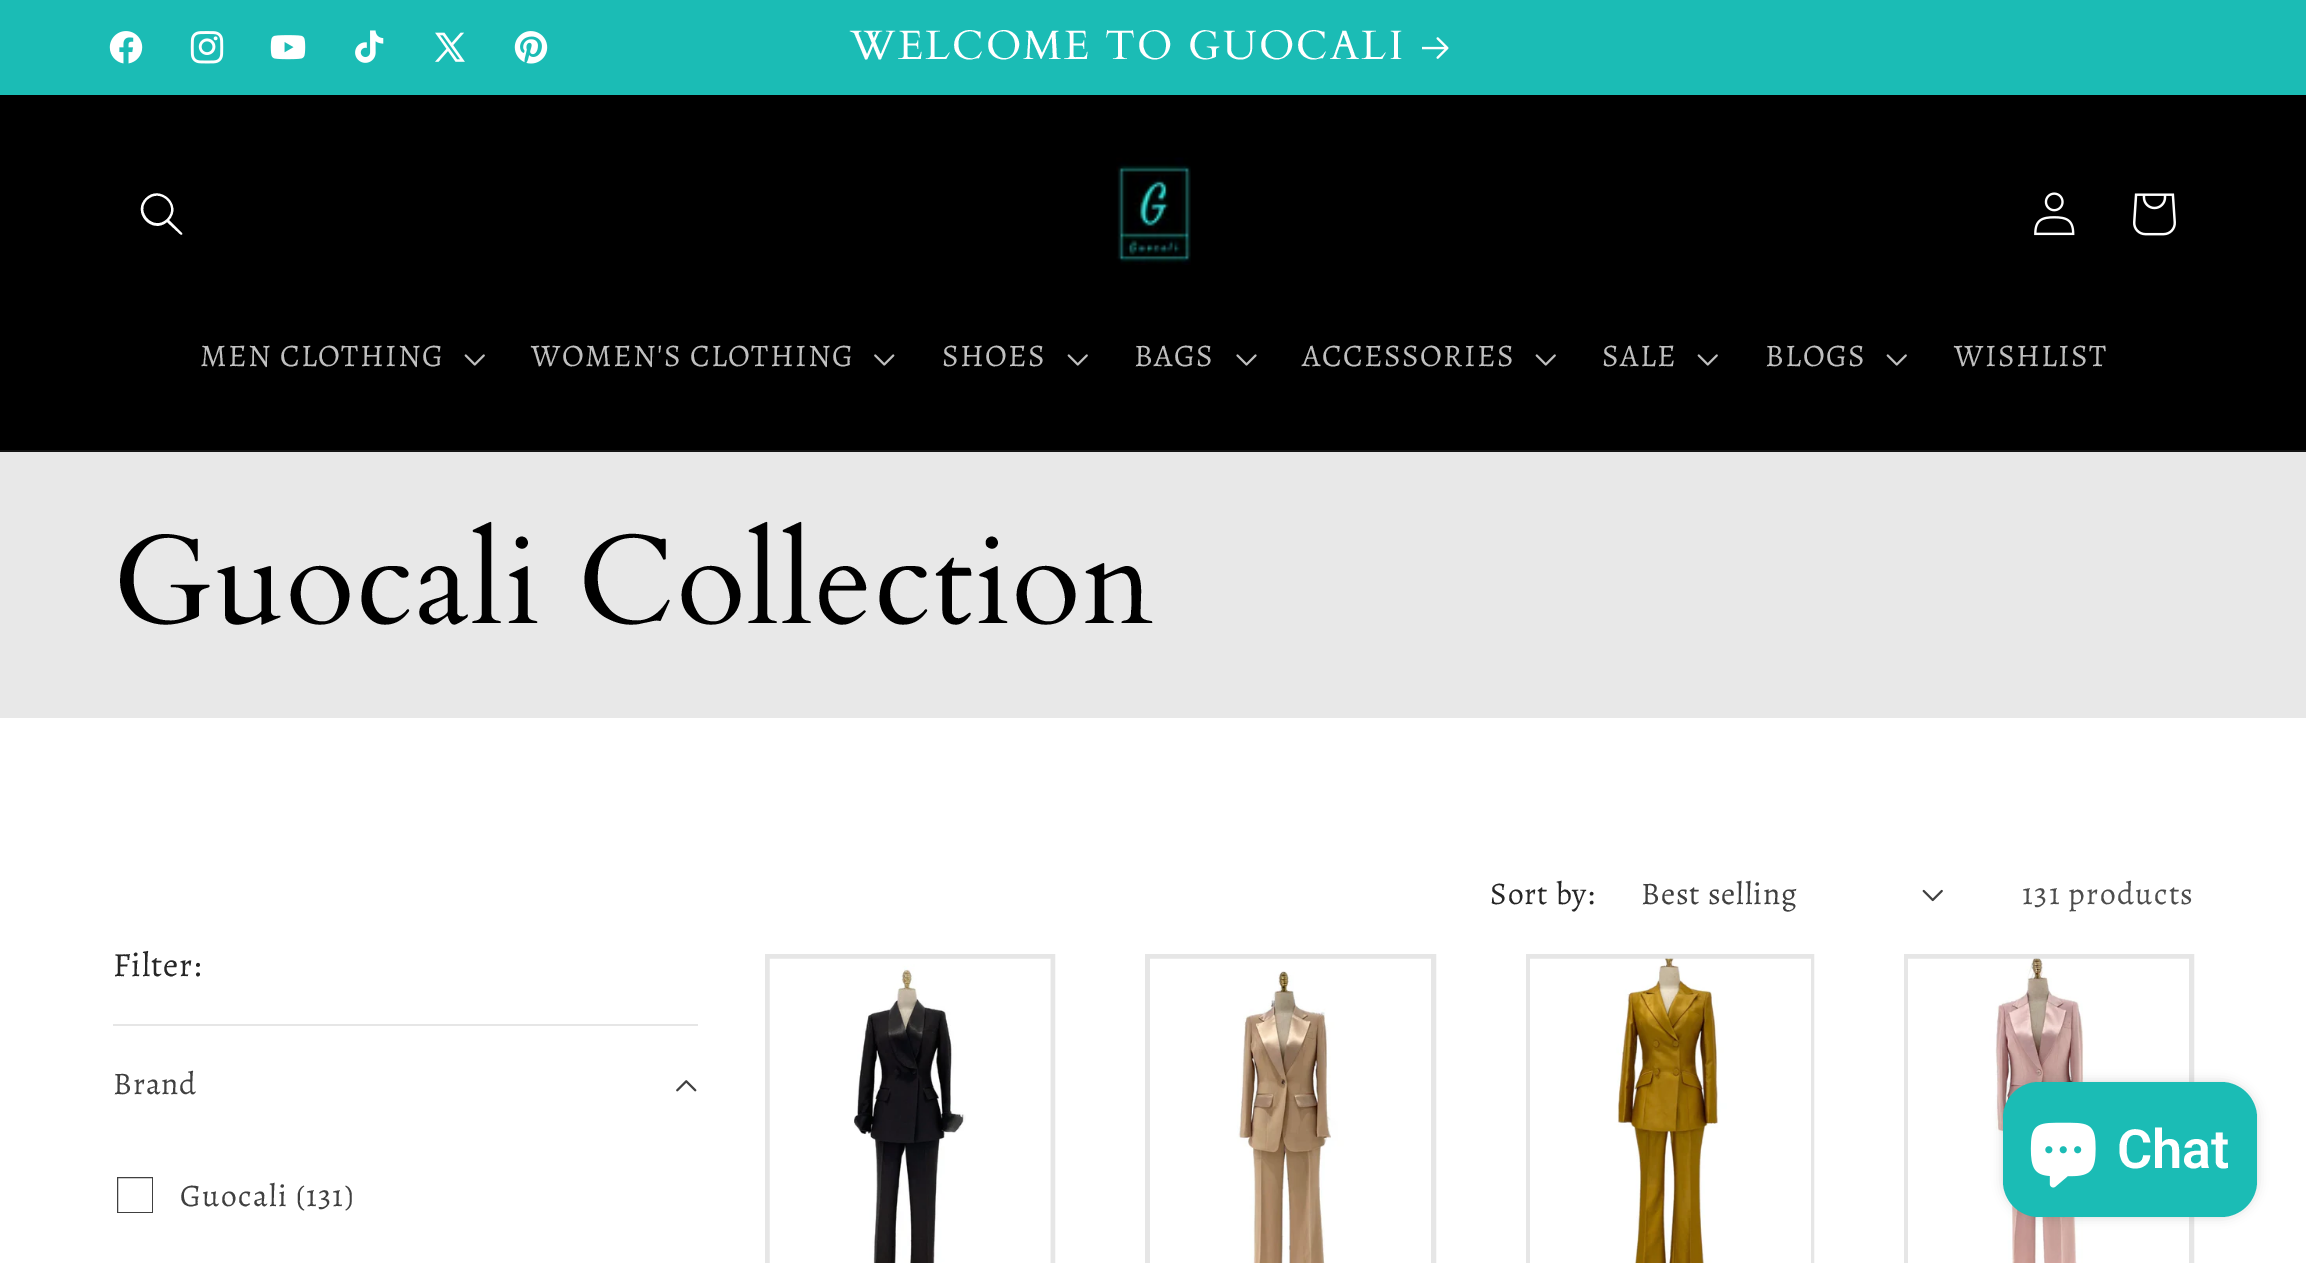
%!PS
<< /PageSize [2306 1263] /PageUsesTransparency true >> setpagedevice
/rgb { dup -16 bitshift 255 div exch dup -8 bitshift 255 and 255 div exch 255 and 255 div setrgbcolor } def
/font { [ exch dup neg 0 0 3 -1 roll 0 0 ] selectfont } def
/text { moveto show } def
/alpha { dup .setfillconstantalpha .setstrokeconstantalpha } def
/roundrect { 5 dict begin { /r /h /w /y /x } { exch def } forall
  x r add y moveto x w add y 2 copy h add r arct x w add y h add x 1 index r arct
  x y h add x y r arct x y 2 copy exch w add exch r arct closepath end } def
/shadow { 12 dict begin { /a /b /q /h /w /y /x } { exch def } forall gsave /was 0 def
  9 -2 -9 { dup b mul 4 div /e exch def 1 sub .425 mul 2.718 exch exp 1 add a .99 .min exch div /now exch def
    1 1 now sub 1 was sub div sub alpha /was now def
    w h .min e 2 mul add 0 gt { x e sub y e sub w e 2 mul add h e 2 mul add
      q e add b .6 mul add w h .min 2 div e add .min 0 .max roundrect fill } if } for grestore end } def
/picture { 5 dict begin { /h /w /y /x /name } { exch def } forall
  gsave x y translate w h scale
  w h 8 [w 0 0 h 0 0] name (r) file false 3 colorimage grestore end } def
0 .pushpdf14devicefilter
0 1263 translate 1 -1 scale
4 setmiterlimit
/s1 { /Roboto-SemiBold 54 font 16#FFFFFF rgb } def
16#FFFFFF rgb
0 0 2306 1263 rectfill
16#1BBCB5 rgb
0 0 2306 95 rectfill
(pic1.raw) 109 31 34 33 picture
(pic2.raw) 190 31 34 33 picture
(pic3.raw) 270 35 36 25 picture
(pic4.raw) 355 30 29 33 picture
(pic5.raw) 435 32 30 30 picture
(pic6.raw) 514 31 34 33 picture
/Cardo-Regular 41 font
16#FFFFFF rgb
850 59 moveto 2.25 0 (WELCOME TO GUOCALI) ashow
(pic7.raw) 1422 37 27 22 picture
16#000000 rgb
0 95 2306 355 rectfill
16#141414 rgb
0 450 2306 2 rectfill
16#FFFFFF rgb
167 219 moveto 154 232 135 212 147 200 curveto 160 187 180 206 167 219 curveto 167 222 moveto 152 235 131 212 146 198 curveto 160 184 183 205 169 220 curveto 182 233 lineto 183 235 181 235 180 234 curveto closepath eofill
(pic8.raw) 1116 157 75 108 picture
(pic9.raw) 2034 192 41 44 picture
(pic10.raw) 2133 193 43 43 picture
/Alegreya-Regular 31.5 font
16#BFBFBF rgb
200 366 moveto 1.4 0 (MEN CLOTHING) ashow
(pic11.raw) 464 354 21 12 picture
531 366 moveto 1.4 0 (WOMEN'S CLOTHING) ashow
(pic12.raw) 874 354 21 12 picture
942 366 moveto 1.4 0 (SHOES) ashow
(pic11.raw) 1067 354 21 12 picture
1134 366 moveto 1.4 0 (BAGS) ashow
(pic13.raw) 1236 354 21 12 picture
1302 366 moveto 1.4 0 (ACCESSORIES) ashow
(pic11.raw) 1535 354 21 12 picture
1602 366 moveto 1.4 0 (SALE) ashow
(pic11.raw) 1697 354 21 12 picture
1765 366 moveto 1.4 0 (BLOGS) ashow
(pic11.raw) 1886 354 21 12 picture
1954 366 moveto 1.4 0 (WISHLIST) ashow
16#E8E8E8 rgb
0 452 2306 266 rectfill
/Cardo-Regular 126 font
16#000000 rgb
113 623 moveto 1.9 0 (Guocali Collection) ashow
/Alegreya-Regular 31.5 font
16#262626 rgb
1490 904 moveto 0.9 0 (Sort by:) ashow
16#404040 rgb
1641 904 moveto 0.9 0 (Best selling) ashow
(pic14.raw) 1922 889 21 13 picture
16#4D4D4D rgb
2022 904 moveto 1.4 0 (131 products) ashow
/Alegreya-Regular 34 font
16#262626 rgb
113 976 moveto 0.9 0 (Filter:) ashow
16#E6E6E6 rgb
113 1024 585 2 rectfill
/Alegreya-Regular 31.5 font
16#404040 rgb
113 1094 moveto 0.9 0 (Brand) ashow
(pic15.raw) 676 1080 21 12 picture
gsave
117 1177 36 36 rectclip
2 setlinewidth
117 1177 36 36 rectstroke
grestore
180 1206 moveto 1.4 0 (Guocali \(131\)) ashow
16#E6E6E6 rgb
5 setlinewidth
767.5 956.5 285 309 rectstroke
(pic16.raw) 769 958 282 305 picture
1147.5 956.5 286 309 rectstroke
(pic17.raw) 1150 958 281 305 picture
1528.5 956.5 283 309 rectstroke
(pic18.raw) 1530 958 281 305 picture
1906.5 956.5 285 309 rectstroke
(pic19.raw) 1908 958 281 305 picture
16#000000 rgb
2003 1082 254 135 36 5.5 0.15 shadow
16#1BBCB5 rgb
2003 1082 254 135 36 roundrect fill
(pic20.raw) 2030 1122 66 66 picture
s1
(Chat) 2117 1168 text
.poppdf14devicefilter showpage
